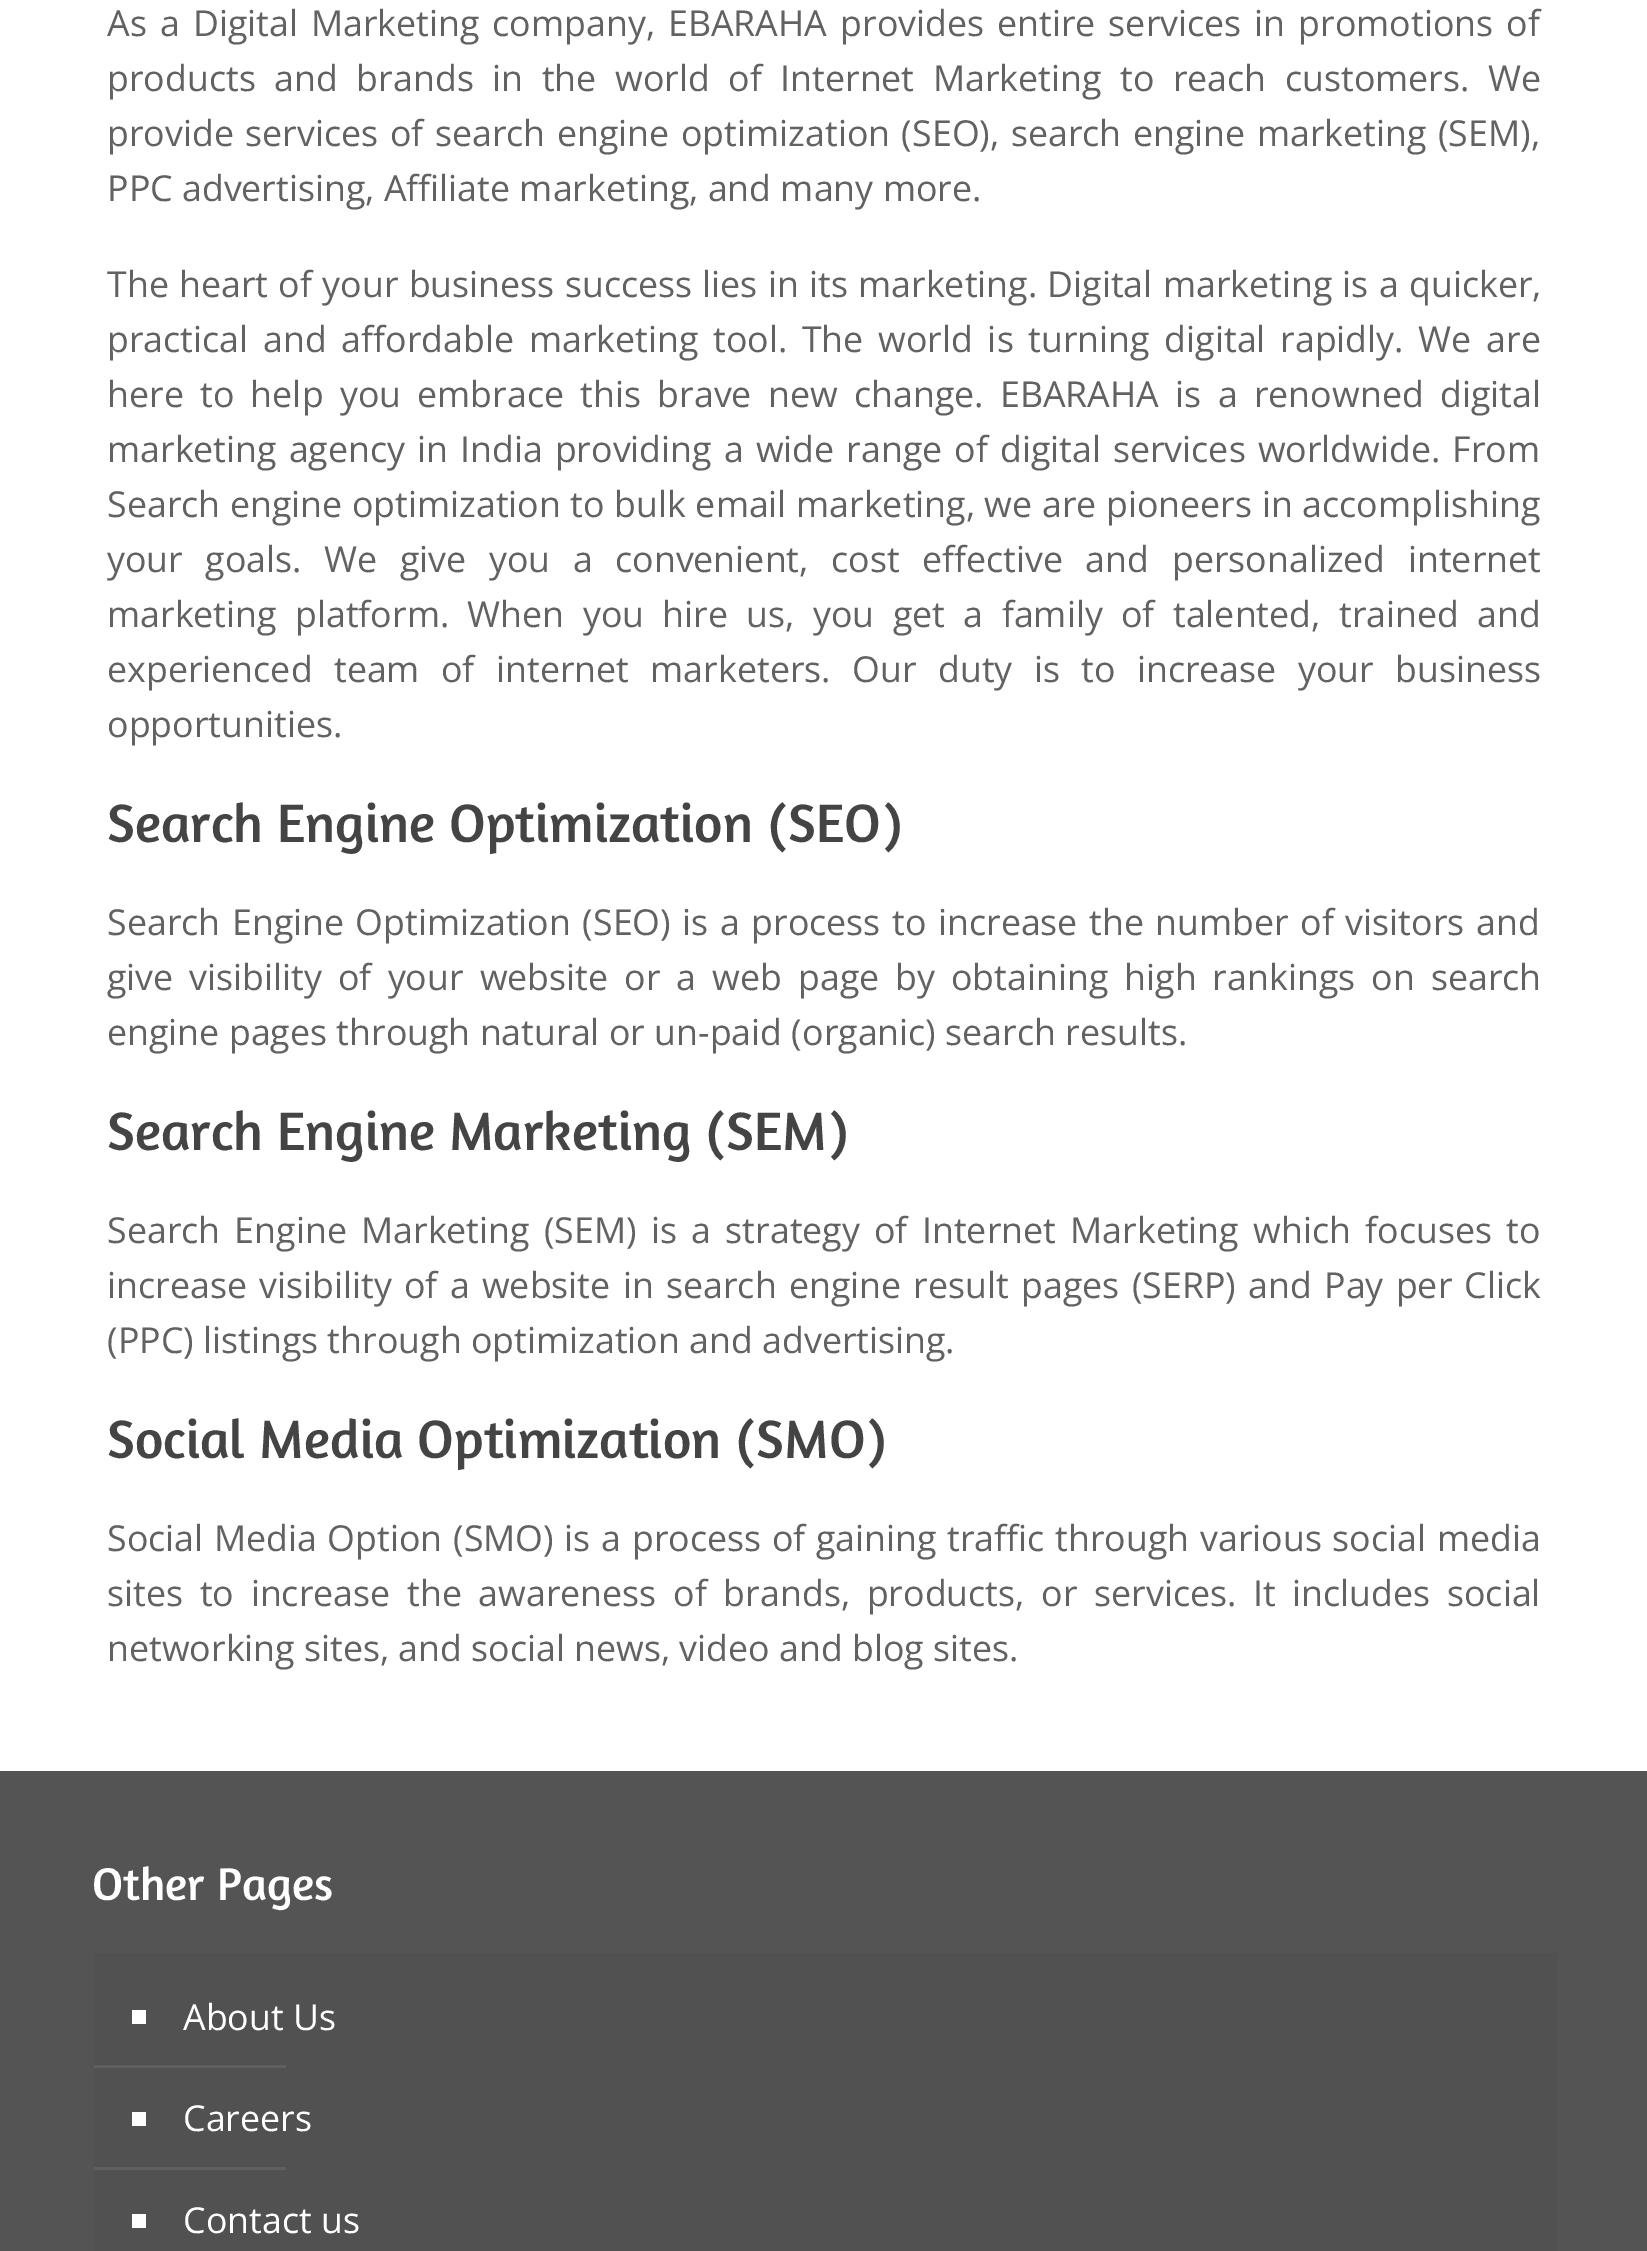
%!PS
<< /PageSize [1647 2251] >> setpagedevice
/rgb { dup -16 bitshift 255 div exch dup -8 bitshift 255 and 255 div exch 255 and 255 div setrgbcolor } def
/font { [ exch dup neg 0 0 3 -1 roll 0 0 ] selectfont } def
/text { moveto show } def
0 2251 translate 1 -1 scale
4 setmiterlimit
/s1 { /OpenSans-Regular 35.75 font 16#626262 rgb } def
/s2 { /Amaranth-Regular 55 font 16#444444 rgb } def
/s3 { /Amaranth-Regular 46.75 font 16#FFFFFF rgb } def
/s4 { /OpenSans-Regular 35.75 font 16#FFFFFF rgb } def
16#FFFFFF rgb
0 0 1647 2251 rectfill
/OpenSans-Regular 35.75 font
16#626262 rgb
107 36 moveto 3.75 0 32 (As a Digital Marketing company, EBARAHA provides entire services in promotions of) widthshow
107 91 moveto 9.25 0 32 (products and brands in the world of Internet Marketing to reach customers. We) widthshow
107 146 moveto 2.25 0 32 (provide services of search engine optimization \(SEO\), search engine marketing \(SEM\),) widthshow
(PPC advertising, Affiliate marketing, and many more.) 107 201 text
107 297 moveto 1 0 32 (The heart of your business success lies in its marketing. Digital marketing is a quicker,) widthshow
107 352 moveto 5.4 0 32 (practical and affordable marketing tool. The world is turning digital rapidly. We are) widthshow
107 407 moveto 7 0 32 (here to help you embrace this brave new change. EBARAHA is a renowned digital) widthshow
107 462 moveto 2.75 0 32 (marketing agency in India providing a wide range of digital services worldwide. From) widthshow
107 517 moveto 0.3 0 32 (Search engine optimization to bulk email marketing, we are pioneers in accomplishing) widthshow
107 572 moveto 13.25 0 32 (your goals. We give you a convenient, cost effective and personalized internet) widthshow
107 627 moveto 9.1 0 32 (marketing platform. When you hire us, you get a family of talented, trained and) widthshow
107 682 moveto 12.1 0 32 (experienced team of internet marketers. Our duty is to increase your business) widthshow
(opportunities.) 107 737 text
s2
(Search Engine Optimization \(SEO\)) 107 842 text
/OpenSans-Regular 35.75 font
16#626262 rgb
107 935 moveto 2.25 0 32 (Search Engine Optimization \(SEO\) is a process to increase the number of visitors and) widthshow
107 990 moveto 6.75 0 32 (give visibility of your website or a web page by obtaining high rankings on search) widthshow
(engine pages through natural or un-paid \(organic\) search results.) 107 1045 text
s2
(Search Engine Marketing \(SEM\)) 107 1150 text
/OpenSans-Regular 35.75 font
16#626262 rgb
107 1243 moveto 5 0 32 (Search Engine Marketing \(SEM\) is a strategy of Internet Marketing which focuses to) widthshow
107 1298 moveto 3 0 32 (increase visibility of a website in search engine result pages \(SERP\) and Pay per Click) widthshow
(\(PPC\) listings through optimization and advertising.) 107 1353 text
s2
(Social Media Optimization \(SMO\)) 107 1458 text
/OpenSans-Regular 35.75 font
16#626262 rgb
107 1551 moveto 1.4 0 32 (Social Media Option \(SMO\) is a process of gaining traffic through various social media) widthshow
107 1606 moveto 7.4 0 32 (sites to increase the awareness of brands, products, or services. It includes social) widthshow
(networking sites, and social news, video and blog sites.) 107 1661 text
16#545454 rgb
0 1771 1647 480 rectfill
s3
(Other Pages) 92 1900 text
16#515151 rgb
94 1953 1463 298 rectfill
16#FFFFFF rgb
132 2010 14 14 rectfill
s4
(About Us) 183 2030 text
16#5F5F5F rgb
94 2065 192 3 rectfill
16#FFFFFF rgb
132 2112 14 14 rectfill
(Careers) 183 2131 text
16#5F5F5F rgb
94 2167 192 3 rectfill
16#FFFFFF rgb
132 2214 14 14 rectfill
(Contact us) 183 2233 text
showpage
